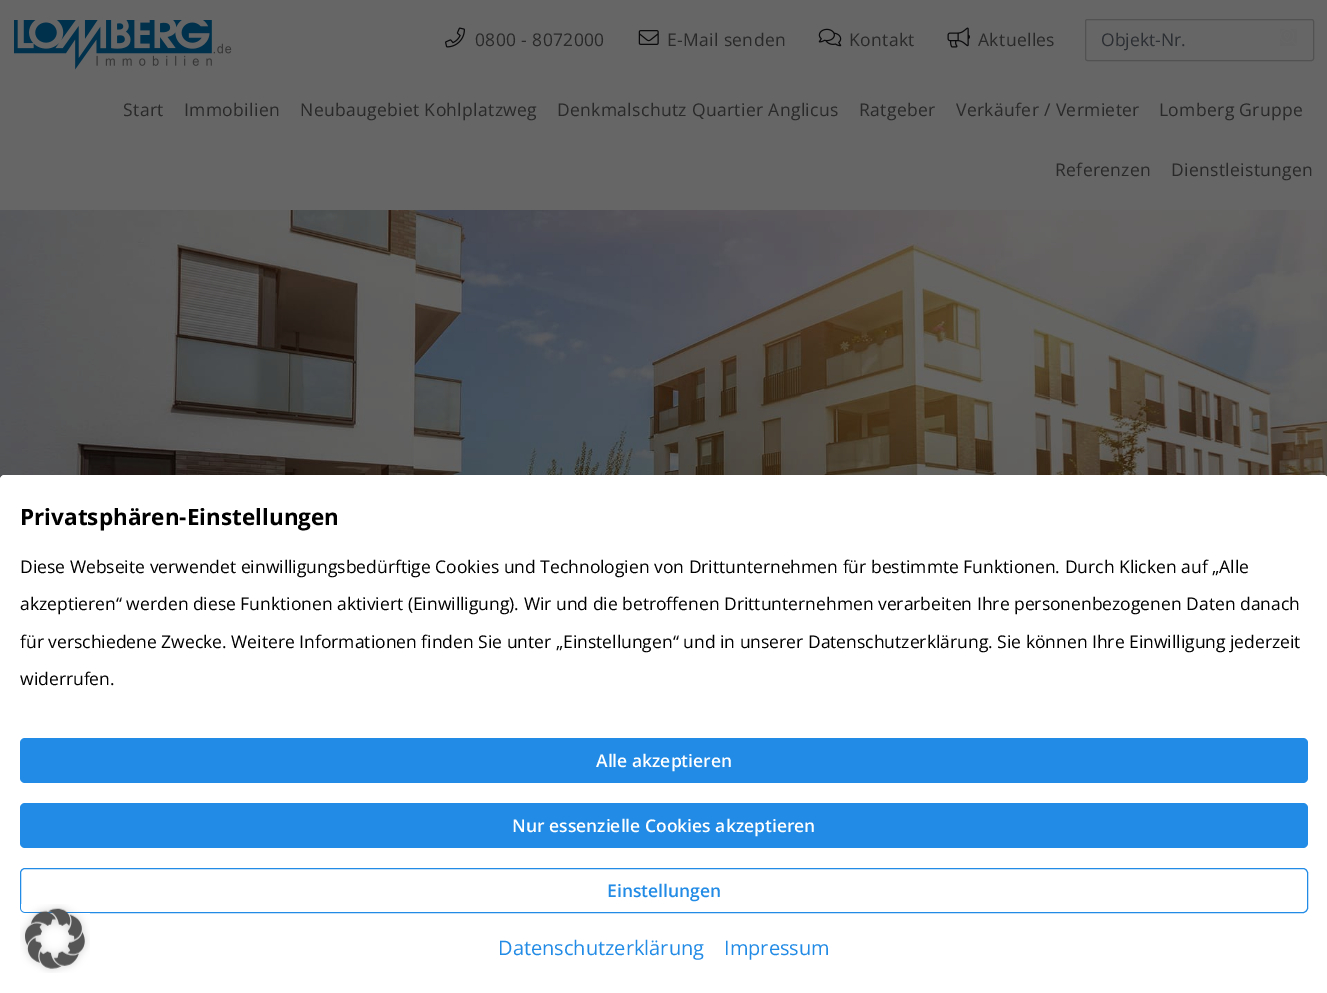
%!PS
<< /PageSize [1327 993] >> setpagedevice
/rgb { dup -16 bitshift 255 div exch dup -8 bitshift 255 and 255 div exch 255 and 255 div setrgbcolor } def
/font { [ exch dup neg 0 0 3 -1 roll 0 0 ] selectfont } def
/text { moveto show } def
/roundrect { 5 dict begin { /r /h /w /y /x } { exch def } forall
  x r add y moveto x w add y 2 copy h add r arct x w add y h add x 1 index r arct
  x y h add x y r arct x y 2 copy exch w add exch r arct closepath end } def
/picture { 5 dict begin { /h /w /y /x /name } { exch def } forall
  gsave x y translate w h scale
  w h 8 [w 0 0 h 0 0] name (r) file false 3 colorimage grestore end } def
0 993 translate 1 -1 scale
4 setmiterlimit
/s1 { /OpenSans-Regular 17.5 font 16#2B2E33 rgb } def
/s2 { /OpenSans-Bold 22.5 font 16#000000 rgb } def
/s3 { /OpenSans-Regular 17.5 font 16#000000 rgb } def
/s4 { /OpenSans-SemiBold 17.5 font 16#FFFFFF rgb } def
/s5 { /OpenSans-SemiBold 17.5 font 16#228BE6 rgb } def
/s6 { /OpenSans-Regular 20 font 16#228BE6 rgb } def
16#666666 rgb
0 0 1327 993 rectfill
(pic1.raw) 445 27 20 21 picture
/OpenSans-Regular 17.5 font
16#292929 rgb
475 46 moveto 0.35 0 (0800 - 8072000) ashow
(pic2.raw) 638 30 21 15 picture
667 46 moveto 0.35 0 (E-Mail senden) ashow
(pic3.raw) 818 28 24 19 picture
849 46 moveto 0.35 0 (Kontakt) ashow
(pic4.raw) 947 27 23 21 picture
978 46 moveto 0.35 0 (Aktuelles) ashow
16#525252 rgb
1085.5 19.5 228 41 2 roundrect stroke
s1
(Objekt-Nr.) 1101 46 text
(pic5.raw) 1280 29 17 17 picture
(pic6.raw) 14 20 218 50 picture
16#292929 rgb
123 116 moveto 0.35 0 (Start) ashow
184 116 moveto 0.35 0 (Immobilien) ashow
300 116 moveto 0.35 0 (Neubaugebiet Kohlplatzweg) ashow
557 116 moveto 0.35 0 (Denkmalschutz Quartier Anglicus) ashow
859 116 moveto 0.35 0 (Ratgeber) ashow
956 116 moveto 0.35 0 (Verkäufer / Vermieter) ashow
1159 116 moveto 0.35 0 (Lomberg Gruppe) ashow
1055 176 moveto 0.35 0 (Referenzen) ashow
1171 176 moveto 0.35 0 (Dienstleistungen) ashow
(pic7.raw) 0 210 1327 270 picture
16#FFFFFF rgb
5 475 moveto 1323 475 lineto 1326 475 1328 477 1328 480 curveto 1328 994 lineto 0 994 lineto 0 480 lineto 0 477 2 475 5 475 curveto closepath fill
0 475 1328 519 5 roundrect fill
s2
(Privatsphären-Einstellungen) 20 525 text
s3
(Diese Webseite verwendet einwilligungsbedürftige Cookies und Technologien von Drittunternehmen für bestimmte Funktionen. Durch Klicken auf „Alle) 20 573 text
(akzeptieren“ werden diese Funktionen aktiviert \(Einwilligung\). Wir und die betroffenen Drittunternehmen verarbeiten Ihre personenbezogenen Daten danach) 20 610 text
(für verschiedene Zwecke. Weitere Informationen finden Sie unter „Einstellungen“ und in unserer Datenschutzerklärung. Sie können Ihre Einwilligung jederzeit) 20 648 text
(widerrufen.) 20 685 text
16#228BE6 rgb
20 738 1288 45 5 roundrect fill
s4
(Alle akzeptieren) 596 767 text
16#228BE6 rgb
20 803 1288 45 5 roundrect fill
s4
(Nur essenzielle Cookies akzeptieren) 512 832 text
16#228BE6 rgb
20.5 868.5 1287 44 4.5 roundrect stroke
(Einstellungen) 607 897 text
s6
(Datenschutzerklärung) 498 955 text
(Impressum) 724 955 text
(pic8.raw) 20 904 70 69 picture
showpage
